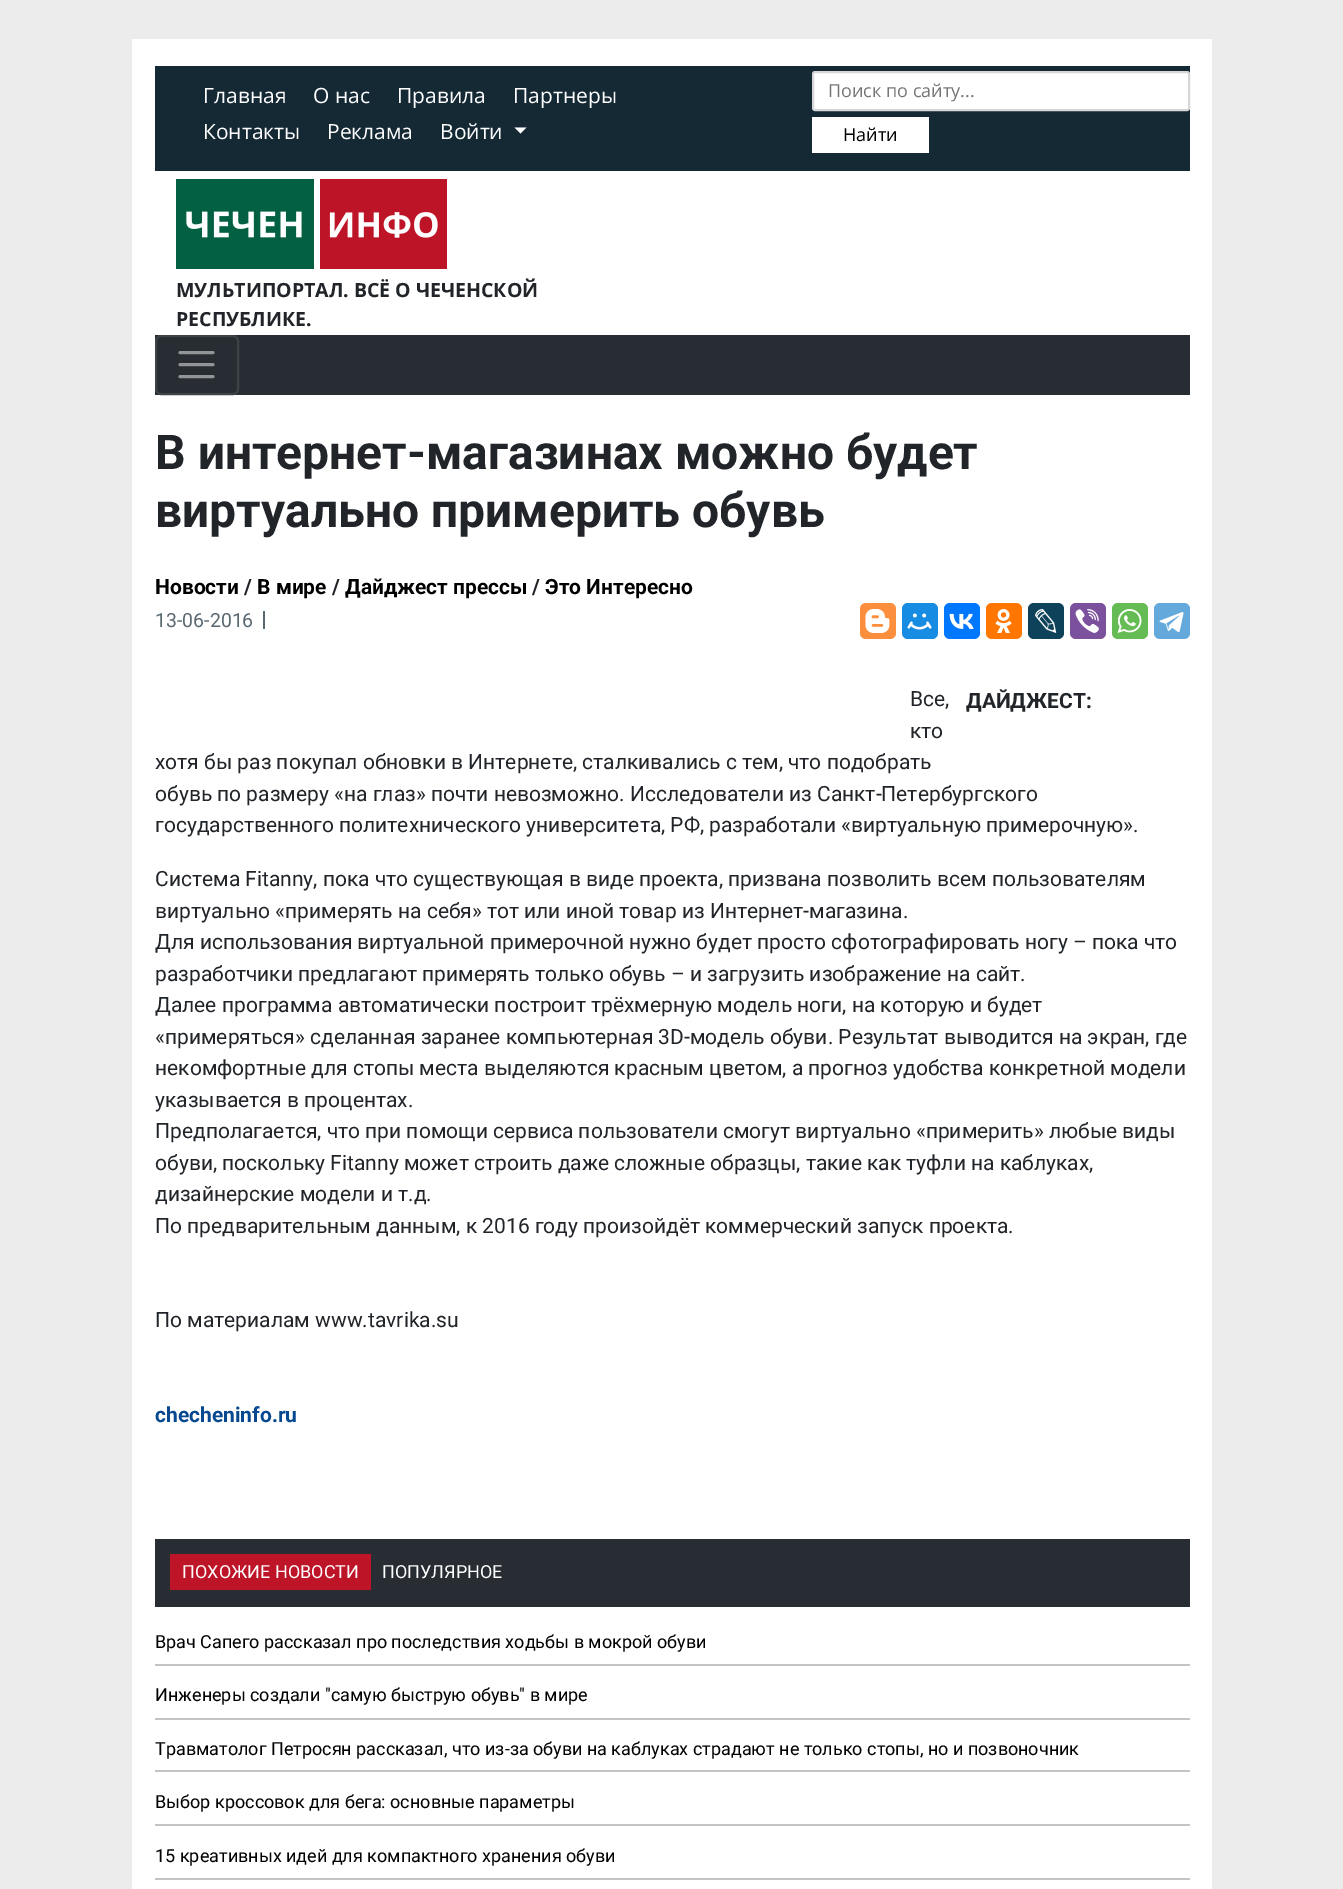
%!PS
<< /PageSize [1343 1889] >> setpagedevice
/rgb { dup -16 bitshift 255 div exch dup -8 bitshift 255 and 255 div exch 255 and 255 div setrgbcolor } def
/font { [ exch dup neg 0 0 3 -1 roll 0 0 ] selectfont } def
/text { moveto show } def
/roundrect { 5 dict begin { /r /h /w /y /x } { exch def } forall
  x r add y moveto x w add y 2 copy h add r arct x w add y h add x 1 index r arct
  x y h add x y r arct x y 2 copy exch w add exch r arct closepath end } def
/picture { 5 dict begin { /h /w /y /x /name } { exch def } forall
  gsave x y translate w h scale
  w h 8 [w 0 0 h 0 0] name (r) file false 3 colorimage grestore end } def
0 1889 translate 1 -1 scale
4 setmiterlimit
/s1 { /OpenSans-Regular 21 font 16#FFFFFF rgb } def
/s2 { /OpenSans-Regular 18 font 16#757575 rgb } def
/s3 { /OpenSans-Regular 18 font 16#000000 rgb } def
/s4 { /OpenSans-Bold 19.5 font 16#212529 rgb } def
/s5 { /Roboto-Bold 48 font 16#212529 rgb } def
/s6 { /Roboto-Bold 21 font 16#000000 rgb } def
/s7 { /Roboto-Bold 21 font 16#212529 rgb } def
/s8 { /Roboto-Regular 19.5 font 16#5A6872 rgb } def
/s9 { /Roboto-Regular 21 font 16#212529 rgb } def
/s10 { /Roboto-Bold 21 font 16#074990 rgb } def
/s11 { /Roboto-Regular 18 font 16#FFFFFF rgb } def
/s12 { /Roboto-Regular 18 font 16#000000 rgb } def
16#ECECEC rgb
0 0 1343 1889 rectfill
16#FFFFFF rgb
132 39 1080 1850 rectfill
16#152935 rgb
155 66 1035 105 rectfill
s1
(Главная) 203 103 text
(О нас) 313 103 text
(Правила) 397 103 text
(Партнеры) 513 103 text
(Контакты) 203 139 text
(Реклама) 327 139 text
(Войти) 440 139 text
514.5 127.5 moveto 526.5 127.5 lineto 520.5 133.5 lineto closepath fill
813 72 376 38 2 roundrect gsave fill grestore
16#D7D7D7 rgb
2 setlinewidth
stroke
s2
(Поиск по сайту...) 828 97 text
16#FFFFFF rgb
812 117 117 36 rectfill
s3
(Найти) 843 141 text
(pic1.raw) 176 179 271 90 picture
s4
(МУЛЬТИПОРТАЛ. ВСЁ О ЧЕЧЕНСКОЙ) 176 297 text
(РЕСПУБЛИКЕ.) 176 326 text
16#272D33 rgb
155 335 1035 60 rectfill
16#3D4247 rgb
156 336 82 58 5 roundrect stroke
16#939699 rgb
3 setlinewidth
1 setlinecap
180 352.5 moveto 213 352.5 lineto 180 364.5 moveto 213 364.5 lineto 180 376.5 moveto 213 376.5 lineto stroke
s5
(В интернет-магазинах можно будет) 155 469 text
(виртуально примерить обувь) 155 527 text
s6
(Новости) 155 594 text
s7
(/) 244 594 text
s6
(В мире) 257 594 text
s7
(/) 332 594 text
s6
(Дайджест прессы) 345 594 text
s7
(/) 532 594 text
s6
(Это Интересно) 545 594 text
s8
(13-06-2016) 155 627 text
263 611 2 18 rectfill
16#FB8F3D rgb
860 603 36 36 6 roundrect fill
(pic2.raw) 865 609 25 24 picture
16#168DE2 rgb
902 603 36 36 6 roundrect fill
(pic3.raw) 907 613 25 17 picture
16#0077FF rgb
944 603 36 36 6 roundrect fill
(pic4.raw) 949 613 25 16 picture
16#FF7700 rgb
986 603 36 36 6 roundrect fill
(pic5.raw) 995 609 17 24 picture
16#0D425A rgb
1028 603 36 36 6 roundrect fill
(pic6.raw) 1035 609 22 24 picture
16#7B519D rgb
1070 603 36 36 6 roundrect fill
(pic7.raw) 1075 609 24 24 picture
16#65BC54 rgb
1112 603 36 36 6 roundrect fill
(pic8.raw) 1117 609 25 24 picture
16#64A9DC rgb
1154 603 36 36 6 roundrect fill
(pic9.raw) 1159 612 25 21 picture
s9
(Все,) 910 706 text
s7
(ДАЙДЖЕСТ:) 966 708 text
s9
(кто) 910 738 text
(хотя бы раз покупал обновки в Интернете, сталкивались с тем, что подобрать) 155 769 text
(обувь по размеру «на глаз» почти невозможно. Исследователи из Санкт-Петербургского) 155 801 text
(государственного политехнического университета, РФ, разработали «виртуальную примерочную».) 155 832 text
(Система Fitanny, пока что существующая в виде проекта, призвана позволить всем пользователям) 155 886 text
(виртуально «примерять на себя» тот или иной товар из Интернет-магазина.) 155 918 text
(Для использования виртуальной примерочной нужно будет просто сфотографировать ногу – пока что) 155 949 text
(разработчики предлагают примерять только обувь – и загрузить изображение на сайт.) 155 981 text
(Далее программа автоматически построит трёхмерную модель ноги, на которую и будет) 155 1012 text
(«примеряться» сделанная заранее компьютерная 3D-модель обуви. Результат выводится на экран, где) 155 1044 text
(некомфортные для стопы места выделяются красным цветом, а прогноз удобства конкретной модели) 155 1075 text
(указывается в процентах.) 155 1107 text
(Предполагается, что при помощи сервиса пользователи смогут виртуально «примерить» любые виды) 155 1138 text
(обуви, поскольку Fitanny может строить даже сложные образцы, такие как туфли на каблуках,) 155 1170 text
(дизайнерские модели и т.д.) 155 1201 text
(По предварительным данным, к 2016 году произойдёт коммерческий запуск проекта.) 155 1233 text
(По материалам www.tavrika.su) 155 1327 text
s10
(checheninfo.ru) 155 1422 text
16#272D33 rgb
155 1539 1035 68 rectfill
16#BD1427 rgb
170 1554 201 36 rectfill
s11
(ПОХОЖИЕ НОВОСТИ) 182 1578 text
(ПОПУЛЯРНОЕ) 382 1578 text
s12
(Врач Сапего рассказал про последствия ходьбы в мокрой обуви) 155 1648 text
16#C4C4C4 rgb
155 1664 1035 2 rectfill
s12
(Инженеры создали "самую быструю обувь" в мире) 155 1701 text
16#C4C4C4 rgb
155 1718 1035 2 rectfill
s12
(Травматолог Петросян рассказал, что из-за обуви на каблуках страдают не только стопы, но и позвоночник) 155 1755 text
16#C4C4C4 rgb
155 1770 1035 2 rectfill
s12
(Выбор кроссовок для бега: основные параметры) 155 1808 text
16#C4C4C4 rgb
155 1824 1035 2 rectfill
s12
(15 креативных идей для компактного хранения обуви) 155 1862 text
16#C4C4C4 rgb
155 1878 1035 2 rectfill
showpage
